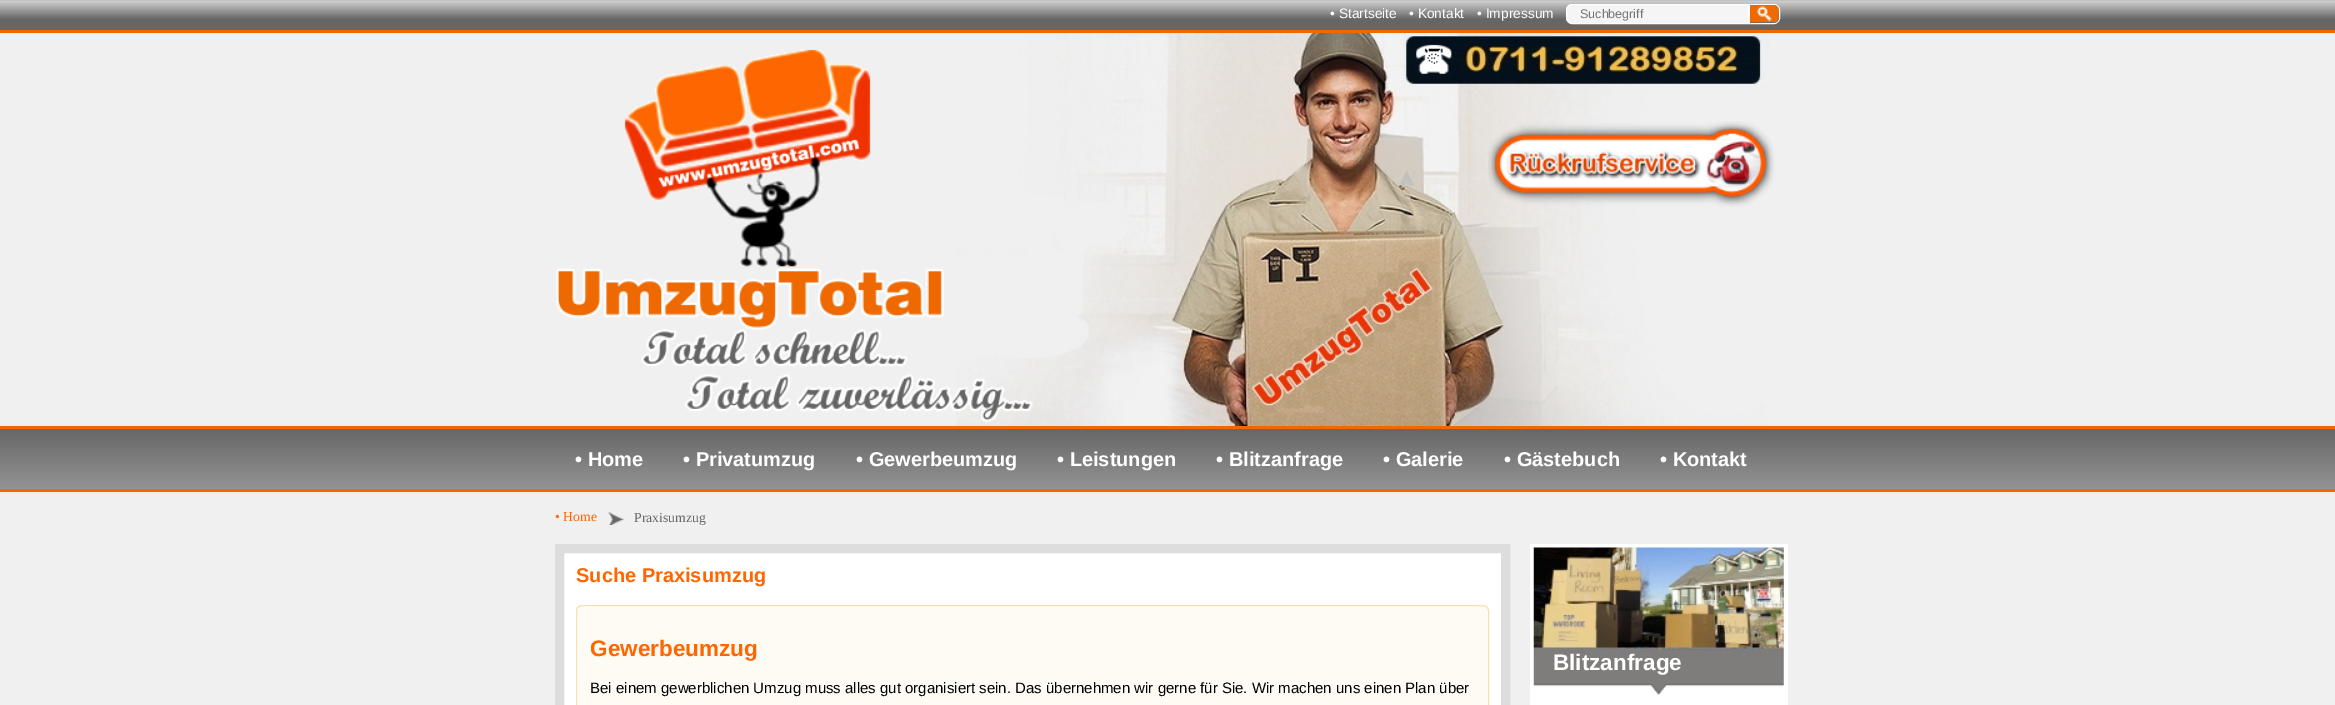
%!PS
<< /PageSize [2335 705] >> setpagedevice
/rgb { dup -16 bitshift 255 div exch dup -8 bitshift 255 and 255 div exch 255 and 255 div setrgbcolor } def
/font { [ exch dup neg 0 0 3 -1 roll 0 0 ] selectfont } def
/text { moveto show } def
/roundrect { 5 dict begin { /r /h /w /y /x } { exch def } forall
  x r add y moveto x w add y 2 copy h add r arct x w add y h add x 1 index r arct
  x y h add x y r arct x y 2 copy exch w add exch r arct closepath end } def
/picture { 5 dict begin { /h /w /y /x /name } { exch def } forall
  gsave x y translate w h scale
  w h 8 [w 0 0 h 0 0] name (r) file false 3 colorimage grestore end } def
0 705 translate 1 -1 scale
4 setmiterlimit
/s1 { /LiberationSans-Regular 13.75 font 16#FFFFFF rgb } def
/s2 { /LiberationSans-Regular 12.5 font 16#757575 rgb } def
/s3 { /LiberationSans-Bold 20 font 16#FFFFFF rgb } def
/s4 { /LiberationSerif-Regular 13.75 font 16#FF6600 rgb } def
/s5 { /LiberationSerif-Regular 13.75 font 16#666666 rgb } def
/s6 { /LiberationSans-Bold 20 font 16#FF6600 rgb } def
/s7 { /LiberationSans-Bold 22.5 font 16#FF6600 rgb } def
/s8 { /LiberationSans-Regular 15 font 16#000000 rgb } def
/s9 { /LiberationSans-Bold 22.5 font 16#FFFFFF rgb } def
16#F0F0F0 rgb
0 0 2335 705 rectfill
(pic1.raw) 0 0 2335 30 picture
16#EE6900 rgb
0 30 2335 3 rectfill
s1
(• Startseite) 1330 18 text
(• Kontakt) 1409 18 text
(• Impressum) 1477 18 text
16#F5F5F5 rgb
1572 4.5 moveto 1748.5 4.5 lineto 1748.5 23.5 lineto 1572 23.5 lineto 1569 23.5 1566.5 21 1566.5 18 curveto 1566.5 10 lineto 1566.5 7 1569 4.5 1572 4.5 curveto closepath gsave fill grestore
16#FFFFFF rgb
stroke
s2
(Suchbegriff) 1580 18 text
16#FFFFFF rgb
1749.5 4.5 moveto 1774 4.5 lineto 1777 4.5 1779.5 7 1779.5 10 curveto 1779.5 18 lineto 1779.5 21 1777 23.5 1774 23.5 curveto 1749.5 23.5 lineto closepath stroke
(pic2.raw) 1750 5 29 18 picture
(pic3.raw) 956 33 813 393 picture
(pic4.raw) 556 49 477 374 picture
(pic5.raw) 1488 121 287 86 picture
(pic6.raw) 0 429 2335 60 picture
16#EE6900 rgb
0 426 2335 3 rectfill
0 489 2335 3 rectfill
s3
(• Home) 575 466 text
(• Privatumzug) 683 466 text
(• Gewerbeumzug) 856 466 text
(• Leistungen) 1057 466 text
(• Blitzanfrage) 1216 466 text
(• Galerie) 1383 466 text
(• Gästebuch) 1504 466 text
(• Kontakt) 1660 466 text
s4
(• Home) 555 521 text
(pic7.raw) 608 512 16 13 picture
s5
(Praxisumzug) 634 522 text
16#FFFFFF rgb
559.5 548.5 moveto 1505.5 548.5 lineto 1505.5 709.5 lineto 559.5 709.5 lineto closepath gsave fill grestore
16#DDDDDD rgb
9 setlinewidth
stroke
s6
(Suche Praxisumzug) 576 582 text
16#FEFBF5 rgb
576.5 605.5 912 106 5.5 roundrect gsave fill grestore
16#F7E0B3 rgb
1 setlinewidth
stroke
s7
(Gewerbeumzug) 590 656 text
s8
(Bei einem gewerblichen Umzug muss alles gut organisiert sein. Das übernehmen wir gerne für Sie. Wir machen uns einen Plan über) 590 693 text
16#FFFFFF rgb
1530 544 258 161 rectfill
(pic8.raw) 1533 547 251 148 picture
s9
(Blitzanfrage) 1553 670 text
showpage
